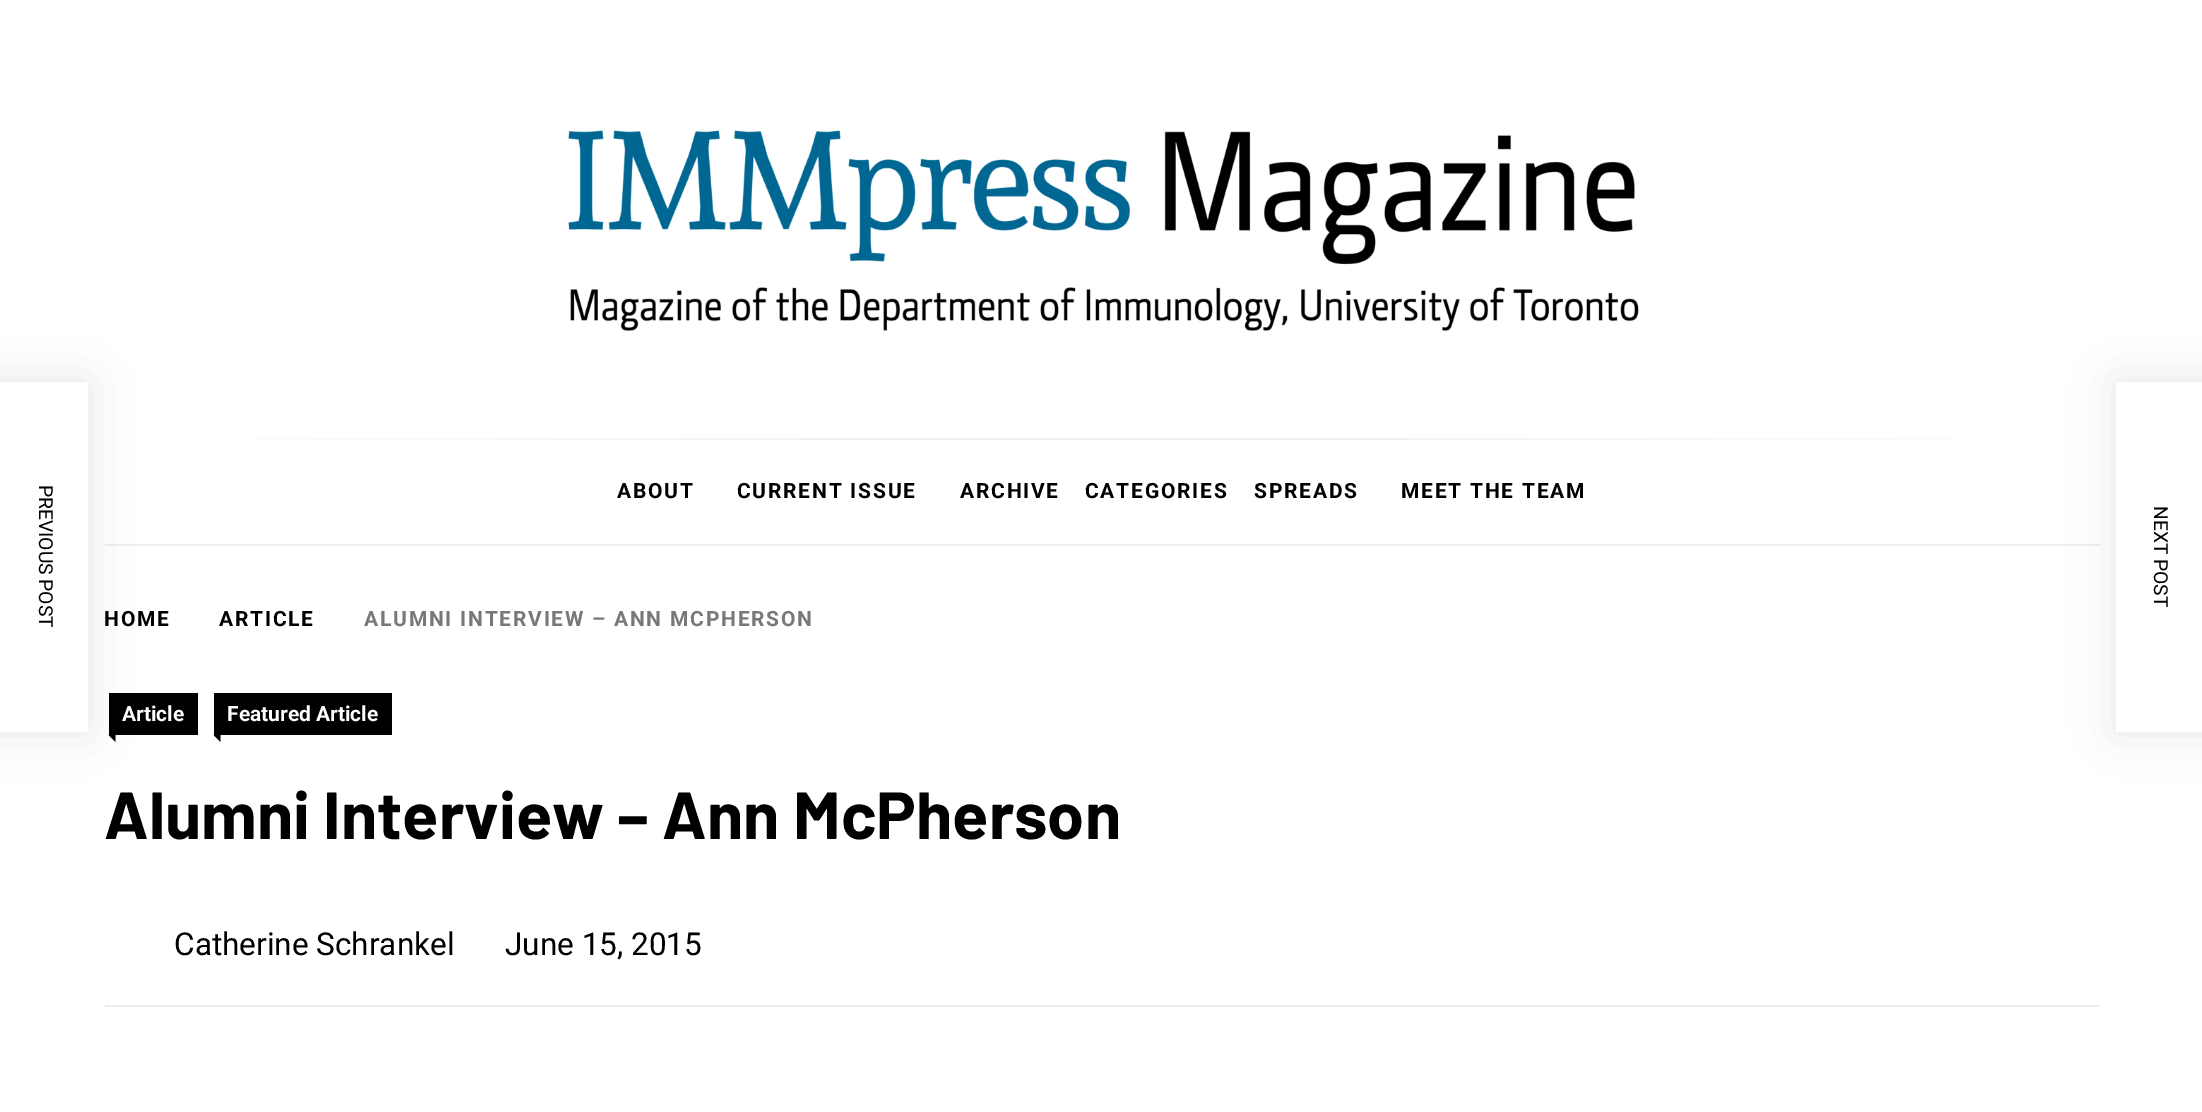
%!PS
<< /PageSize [2202 1112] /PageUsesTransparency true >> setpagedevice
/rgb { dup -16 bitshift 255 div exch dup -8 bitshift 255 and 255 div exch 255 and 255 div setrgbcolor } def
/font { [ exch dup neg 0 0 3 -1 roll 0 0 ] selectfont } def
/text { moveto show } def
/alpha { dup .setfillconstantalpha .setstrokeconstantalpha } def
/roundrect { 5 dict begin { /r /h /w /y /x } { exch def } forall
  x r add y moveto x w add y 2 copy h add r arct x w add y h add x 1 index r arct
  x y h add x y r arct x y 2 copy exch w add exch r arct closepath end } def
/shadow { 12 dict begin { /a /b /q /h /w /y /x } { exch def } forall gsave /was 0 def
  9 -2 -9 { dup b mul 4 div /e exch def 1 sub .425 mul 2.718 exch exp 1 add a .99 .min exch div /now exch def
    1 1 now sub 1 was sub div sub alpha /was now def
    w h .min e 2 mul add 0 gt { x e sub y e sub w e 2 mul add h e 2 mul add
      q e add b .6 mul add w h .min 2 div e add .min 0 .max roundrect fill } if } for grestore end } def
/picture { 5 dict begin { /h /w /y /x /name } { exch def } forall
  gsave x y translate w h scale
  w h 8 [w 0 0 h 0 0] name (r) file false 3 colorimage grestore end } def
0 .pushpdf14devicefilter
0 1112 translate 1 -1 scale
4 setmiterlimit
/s1 { /Roboto-Bold 21 font 16#FFFFFF rgb } def
/s2 { /Barlow-Bold 66.5 font 16#000000 rgb } def
/s3 { /Roboto-Regular 31.5 font 16#000000 rgb } def
16#FFFFFF rgb
0 0 2202 1112 rectfill
(pic1.raw) 568 130 1071 201 picture
16#EEEEEE rgb
105 544 1995 2 rectfill
gsave 252 438 moveto 1953 438 lineto 1953 440 lineto 252 440 lineto closepath clip newpath
<< /ShadingType 2 /ColorSpace /DeviceRGB /Coords [2100 438 105 438] /Extend [true true] /Function << /FunctionType 3 /Domain [0 1] /Functions [<< /FunctionType 2 /Domain [0 1] /C0 [1 1 1] /C1 [0.933 0.933 0.933] /N 1 >> << /FunctionType 2 /Domain [0 1] /C0 [0.933 0.933 0.933] /C1 [1 1 1] /N 1 >>] /Bounds [0.5] /Encode [0 1 0 1] >> >> shfill grestore
/Roboto-Bold 21 font
16#000000 rgb
617 498 moveto 1.75 0 (ABOUT) ashow
737 498 moveto 1.75 0 (CURRENT ISSUE) ashow
960 498 moveto 1.75 0 (ARCHIVE) ashow
1085 498 moveto 1.75 0 (CATEGORIES) ashow
1254 498 moveto 1.75 0 (SPREADS) ashow
1401 498 moveto 1.75 0 (MEET THE TEAM) ashow
109 693 89 42 rectfill
115.5 735 moveto 115.5 742 lineto 108.5 735 lineto closepath fill
-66 382 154 350 0 22 0.1 shadow
16#FFFFFF rgb
0 382 88 350 rectfill
/Roboto-Regular 19.25 font
16#000000 rgb
gsave 39 485 translate 90 rotate 0 0 moveto (PREVIOUS POST) show grestore
2116 382 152 350 0 22 0.1 shadow
16#FFFFFF rgb
2116 382 86 350 rectfill
16#000000 rgb
gsave 2154 506 translate 90 rotate 0 0 moveto (NEXT POST) show grestore
/Roboto-Bold 21 font
104 626 moveto 1.75 0 (HOME) ashow
219 626 moveto 1.75 0 (ARTICLE) ashow
16#787878 rgb
364 626 moveto 1.75 0 (ALUMNI INTERVIEW – ANN MCPHERSON) ashow
16#EEEEEE rgb
105 1005 1995 2 rectfill
s1
(Article) 122 721 text
16#000000 rgb
214 693 178 42 rectfill
s1
(Featured Article) 227 721 text
16#000000 rgb
220.5 735 moveto 220.5 742 lineto 213.5 735 lineto closepath fill
s2
(Alumni Interview – Ann McPherson) 104 839 text
s3
(Catherine Schrankel) 174 955 text
(June 15, 2015) 505 955 text
.poppdf14devicefilter showpage
